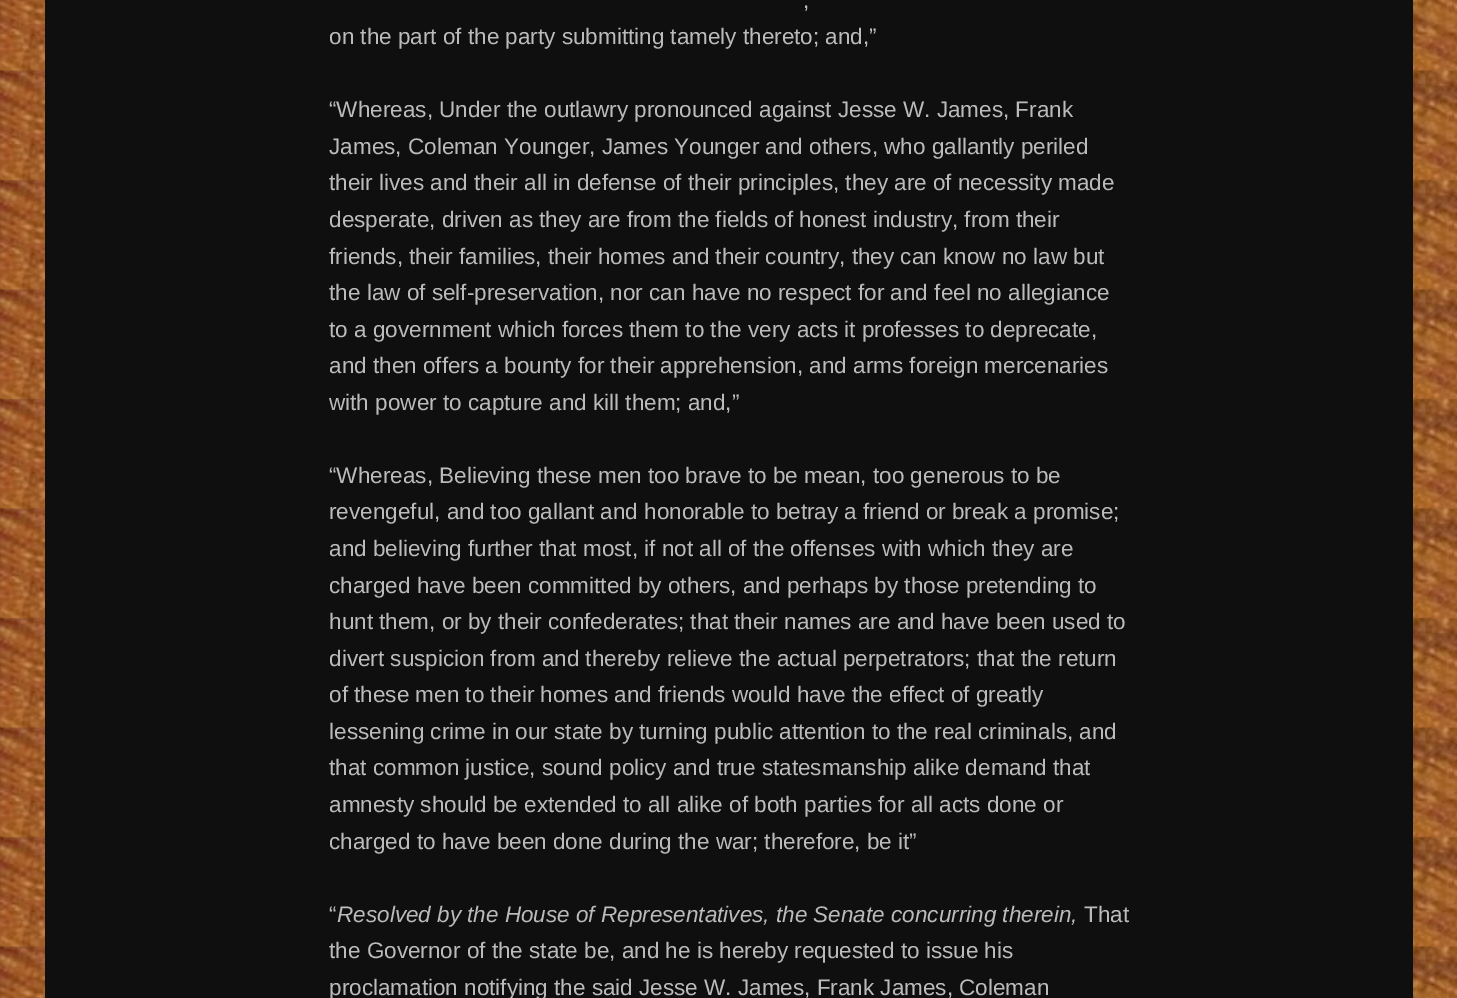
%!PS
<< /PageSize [1457 998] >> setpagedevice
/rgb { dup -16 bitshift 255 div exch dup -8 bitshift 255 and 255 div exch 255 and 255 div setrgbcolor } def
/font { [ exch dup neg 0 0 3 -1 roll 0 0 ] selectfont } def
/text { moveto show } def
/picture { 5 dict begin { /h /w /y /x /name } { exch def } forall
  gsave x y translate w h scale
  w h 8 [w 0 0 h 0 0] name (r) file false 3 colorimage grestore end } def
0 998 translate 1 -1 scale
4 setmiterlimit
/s1 { /LiberationSans-Regular 22.5 font 16#BBBBBB rgb } def
/s2 { /LiberationSans-Italic 22.5 font 16#BBBBBB rgb } def
16#FFFFFF rgb
0 0 1457 998 rectfill
(pic1.raw) 0 0 1457 998 picture
16#0F0F0F rgb
45 0 1368 998 rectfill
s1
(,) 803 8 text
(on the part of the party submitting tamely thereto; and,”) 329 44 text
(“Whereas, Under the outlawry pronounced against Jesse W. James, Frank) 329 117 text
(James, Coleman Younger, James Younger and others, who gallantly periled) 329 154 text
(their lives and their all in defense of their principles, they are of necessity made) 329 190 text
(desperate, driven as they are from the fields of honest industry, from their) 329 227 text
(friends, their families, their homes and their country, they can know no law but) 329 264 text
(the law of self-preservation, nor can have no respect for and feel no allegiance) 329 300 text
(to a government which forces them to the very acts it professes to deprecate,) 329 337 text
(and then offers a bounty for their apprehension, and arms foreign mercenaries) 329 373 text
(with power to capture and kill them; and,”) 329 410 text
(“Whereas, Believing these men too brave to be mean, too generous to be) 329 483 text
(revengeful, and too gallant and honorable to betray a friend or break a promise;) 329 519 text
(and believing further that most, if not all of the offenses with which they are) 329 556 text
(charged have been committed by others, and perhaps by those pretending to) 329 593 text
(hunt them, or by their confederates; that their names are and have been used to) 329 629 text
(divert suspicion from and thereby relieve the actual perpetrators; that the return) 329 666 text
(of these men to their homes and friends would have the effect of greatly) 329 702 text
(lessening crime in our state by turning public attention to the real criminals, and) 329 739 text
(that common justice, sound policy and true statesmanship alike demand that) 329 775 text
(amnesty should be extended to all alike of both parties for all acts done or) 329 812 text
(charged to have been done during the war; therefore, be it”) 329 849 text
(“) 329 922 text
s2
(Resolved by the House of Representatives, the Senate concurring therein,) 337 922 text
s1
(That) 1084 922 text
(the Governor of the state be, and he is hereby requested to issue his) 329 958 text
(proclamation notifying the said Jesse W. James, Frank James, Coleman) 329 995 text
showpage
